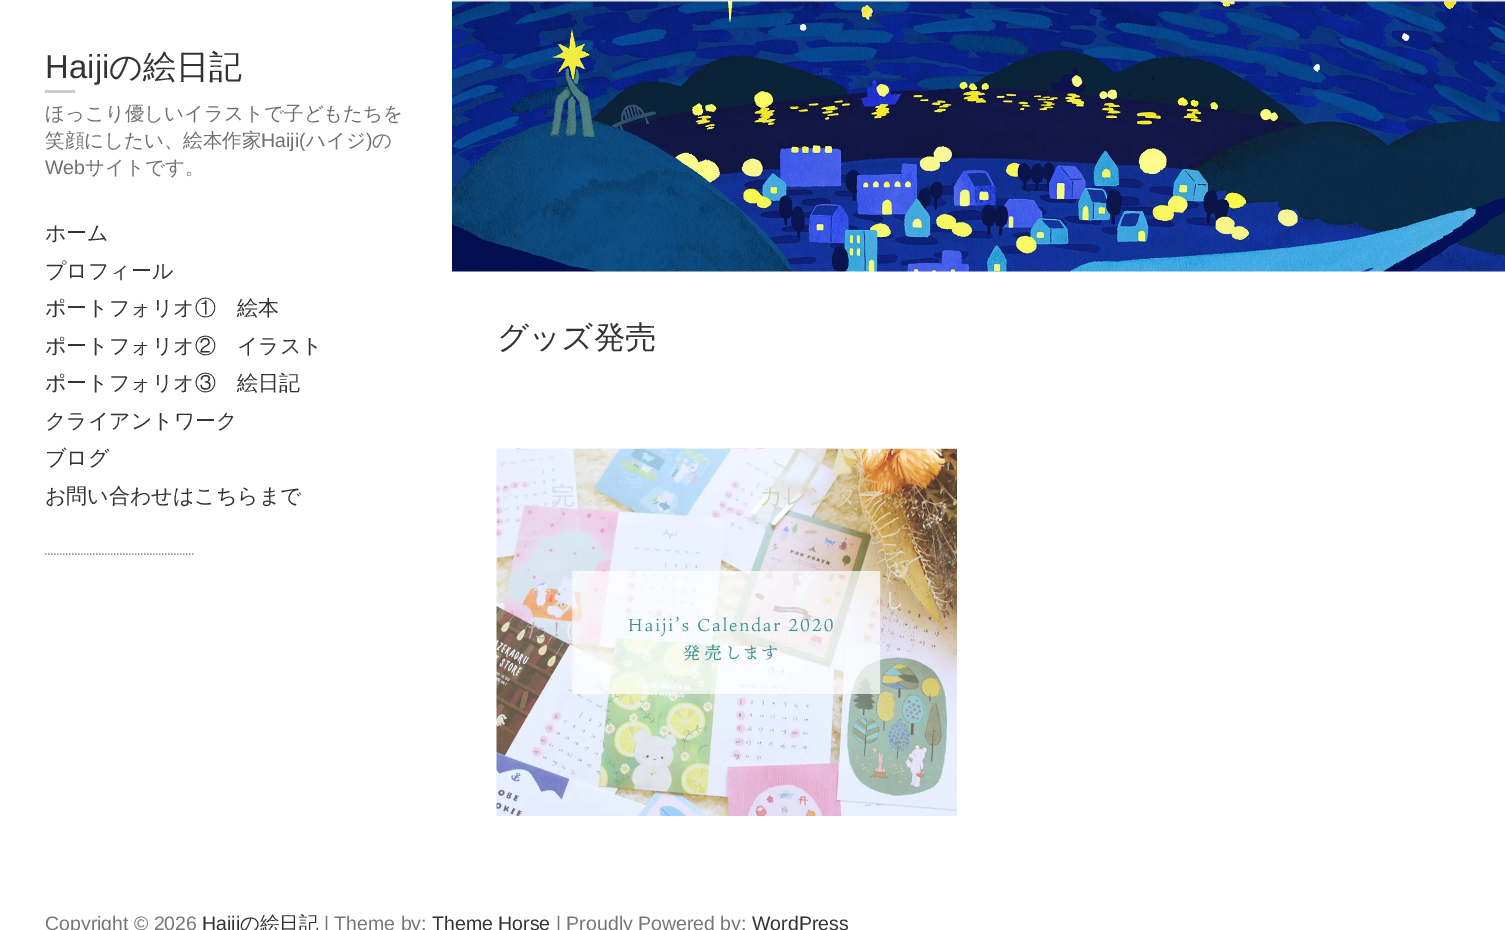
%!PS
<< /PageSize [1505 930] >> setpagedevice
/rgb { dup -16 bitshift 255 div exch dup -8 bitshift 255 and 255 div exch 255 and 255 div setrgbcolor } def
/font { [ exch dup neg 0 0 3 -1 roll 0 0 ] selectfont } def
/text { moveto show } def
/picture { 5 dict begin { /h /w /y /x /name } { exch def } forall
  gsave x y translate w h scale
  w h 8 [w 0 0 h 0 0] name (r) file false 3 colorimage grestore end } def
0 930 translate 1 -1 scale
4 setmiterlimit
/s1 { /LiberationSans-Regular 33 font 16#333333 rgb } def
/s2 { /WenQuanYiZenHei-Medium 33 font 16#333333 rgb } def
/s3 { /WenQuanYiZenHei-Medium 19.5 font 16#707070 rgb } def
/s4 { /LiberationSans-Regular 19.5 font 16#707070 rgb } def
/s5 { /WenQuanYiZenHei-Medium 21 font 16#333333 rgb } def
/s6 { /WenQuanYiZenHei-Medium 31.5 font 16#333333 rgb } def
/s7 { /WenQuanYiZenHei-Medium 24 font 16#D2E1EB rgb } def
/s8 { /WenQuanYiZenHei-Medium 24 font 16#DDD2BB rgb } def
/s9 { /WenQuanYiZenHei-Medium 19.5 font 16#F2E9E5 rgb } def
/s10 { /WenQuanYiZenHei-Medium 19.5 font 16#BCB4B4 rgb } def
/s11 { /LiberationSans-Regular 19.5 font 16#F4F1F7 rgb } def
/s12 { /LiberationSans-Regular 19.5 font 16#777777 rgb } def
/s13 { /LiberationSans-Regular 19.5 font 16#333333 rgb } def
/s14 { /WenQuanYiZenHei-Medium 19.5 font 16#333333 rgb } def
16#FFFFFF rgb
0 0 1505 930 rectfill
s1
(Haiji) 45 78 text
s2
(の絵日記) 109 78 text
16#CCCCCC rgb
45 90 30 3 rectfill
s3
(ほっこり優しいイラストで子どもたちを) 45 120 text
(笑顔にしたい、絵本作家) 45 147 text
s4
(Haiji\() 261 147 text
s3
(ハイジ) 306 147 text
s4
(\)) 366 147 text
s3
(の) 372 147 text
s4
(Web) 45 174 text
s3
(サイトです。) 85 174 text
s5
(ホーム) 45 240 text
(プロフィール) 45 278 text
(ポートフォリオ①　絵本) 45 315 text
(ポートフォリオ②　イラスト) 45 353 text
(ポートフォリオ③　絵日記) 45 390 text
(クライアントワーク) 45 428 text
(ブログ) 45 465 text
(お問い合わせはこちらまで) 45 503 text
16#999999 rgb
1.5 setlinewidth
[1.5 1.5] 0 setdash
45 554 moveto 195 554 lineto stroke
16#E6E6E6 rgb
452 0 1053 2 rectfill
(pic1.raw) 452 1 1053 271 picture
s6
(グッズ発売) 497 348 text
(pic2.raw) 496 448 461 368 picture
s7
(完) 551 504 text
s8
(カレンダー) 759 504 text
s9
(し) 885 606 text
s10
(た！) 527 636 text
s11
(\() 566 636 text
s12
(Copyright © 2026) 45 930 text
s13
(Haiji) 202 930 text
s14
(の絵日記) 240 930 text
s12
(| Theme by:) 324 930 text
s13
(Theme Horse) 432 930 text
s12
(| Proudly Powered by:) 556 930 text
s13
(WordPress) 752 930 text
showpage
